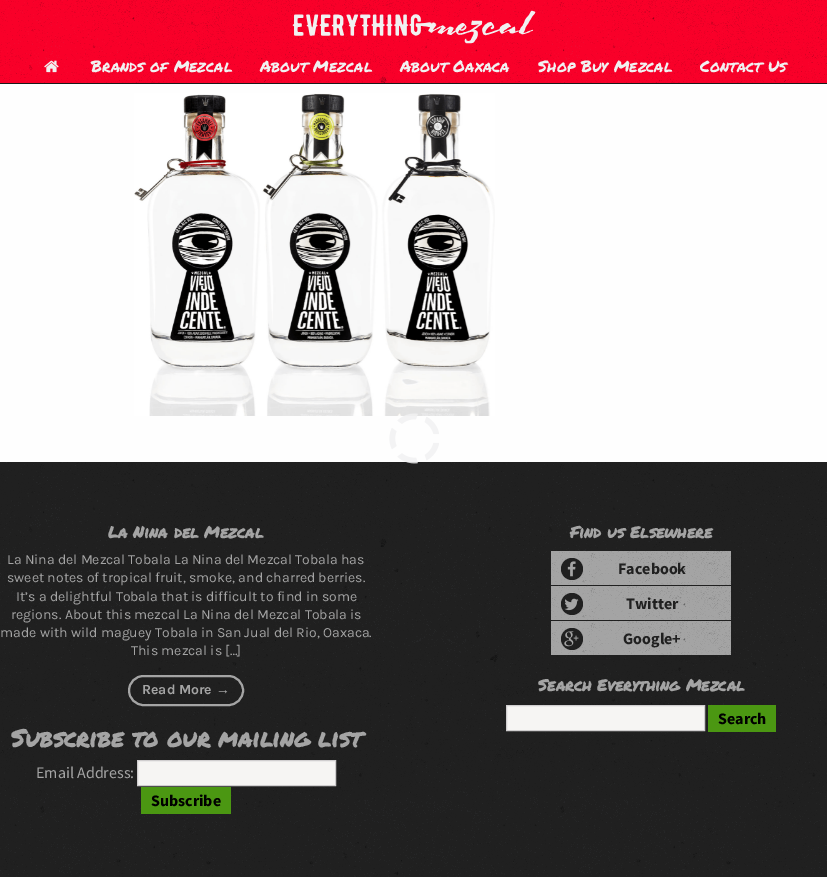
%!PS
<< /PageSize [827 877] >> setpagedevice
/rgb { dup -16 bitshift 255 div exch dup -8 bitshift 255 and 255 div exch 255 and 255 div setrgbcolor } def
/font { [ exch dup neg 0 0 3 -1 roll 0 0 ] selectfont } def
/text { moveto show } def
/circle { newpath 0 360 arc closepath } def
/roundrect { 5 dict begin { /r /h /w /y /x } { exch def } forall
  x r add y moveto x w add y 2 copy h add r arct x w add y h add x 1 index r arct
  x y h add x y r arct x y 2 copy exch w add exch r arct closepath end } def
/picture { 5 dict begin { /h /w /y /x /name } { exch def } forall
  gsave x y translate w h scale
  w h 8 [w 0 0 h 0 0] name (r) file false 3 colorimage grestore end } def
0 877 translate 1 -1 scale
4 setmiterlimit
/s1 { /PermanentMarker-Regular 16 font 16#F1F1F1 rgb } def
/s2 { /PermanentMarker-Bold 16 font 16#A4A4A4 rgb } def
/s3 { /Karla-Regular 14 font 16#A4A4A4 rgb } def
/s4 { /Karla-Bold 14 font 16#A4A4A4 rgb } def
/s5 { /LiberationSans-Bold 14 font 16#A4A4A4 rgb } def
/s6 { /PermanentMarker-Bold 24 font 16#A4A4A4 rgb } def
/s7 { /SourceSansPro-Regular 16 font 16#A4A4A4 rgb } def
/s8 { /SourceSansPro-Bold 16 font 16#000000 rgb } def
/s9 { /SourceSansPro-Bold 16 font 16#202020 rgb } def
16#FEFEFE rgb
0 0 827 877 rectfill
16#F90029 rgb
0 0 827 83 rectfill
(pic1.raw) 0 0 827 83 picture
16#1A1A1A rgb
0 83 827 1 rectfill
(pic2.raw) 292 10 244 34 picture
(pic3.raw) 44 60 15 13 picture
s1
(Brands of Mezcal) 91 72 text
(About Mezcal) 260 72 text
(About Oaxaca) 400 72 text
(Shop Buy Mezcal) 538 72 text
(Contact Us) 700 72 text
(pic4.raw) 134 93 361 323 picture
16#202020 rgb
0 462 827 415 rectfill
(pic6.raw) 0 462 827 415 picture
(pic5.raw) 389 413 50 51 picture
s2
(La Nina del Mezcal) 108 538 text
s3
(La Nina del Mezcal Tobala La Nina del Mezcal Tobala has) 7 564 text
(sweet notes of tropical fruit, smoke, and charred berries.) 7 582 text
(It’s a delightful Tobala that is difficult to find in some) 16 601 text
(regions. About this mezcal La Nina del Mezcal Tobala is) 11 619 text
(made with wild maguey Tobala in San Jual del Rio, Oaxaca.) 0 637 text
(This mezcal is […]) 131 655 text
2 setlinewidth
129 676 114 29 14.5 roundrect stroke
s4
(Read More) 142 694 text
s5
(→) 216 694 text
s6
(Subscribe to our mailing list) 11 747 text
s7
(Email Address:) 36 778 text
16#F6F5F3 rgb
137.5 760.5 moveto 335.5 760.5 lineto 335.5 785.5 lineto 137.5 785.5 lineto closepath gsave fill grestore
16#D0CECF rgb
1 setlinewidth
stroke
16#4B9712 rgb
141 787 90 27 rectfill
s8
(Subscribe) 151 806 text
s2
(Find us Elsewhere) 570 538 text
551 551 180 34 rectfill
(pic7.raw) 551 551 180 34 picture
16#202020 rgb
572 569 11 circle fill
(pic8.raw) 567 561 9 16 picture
s9
(Facebook) 618 574 text
16#A4A4A4 rgb
551 586 180 34 rectfill
(pic7.raw) 551 586 180 34 picture
16#202020 rgb
572 604 11 circle fill
(pic9.raw) 564 598 15 13 picture
(Twitter) 626 609 text
16#A4A4A4 rgb
551 621 180 34 rectfill
(pic7.raw) 551 621 180 34 picture
16#202020 rgb
572 639 11 circle fill
(pic10.raw) 564 631 15 16 picture
(Google+) 623 644 text
s2
(Search Everything Mezcal) 538 691 text
16#F6F5F3 rgb
506.5 705.5 moveto 704.5 705.5 lineto 704.5 730.5 lineto 506.5 730.5 lineto closepath gsave fill grestore
16#D0CECF rgb
stroke
16#4B9712 rgb
708 705 68 27 rectfill
s8
(Search) 718 724 text
showpage
